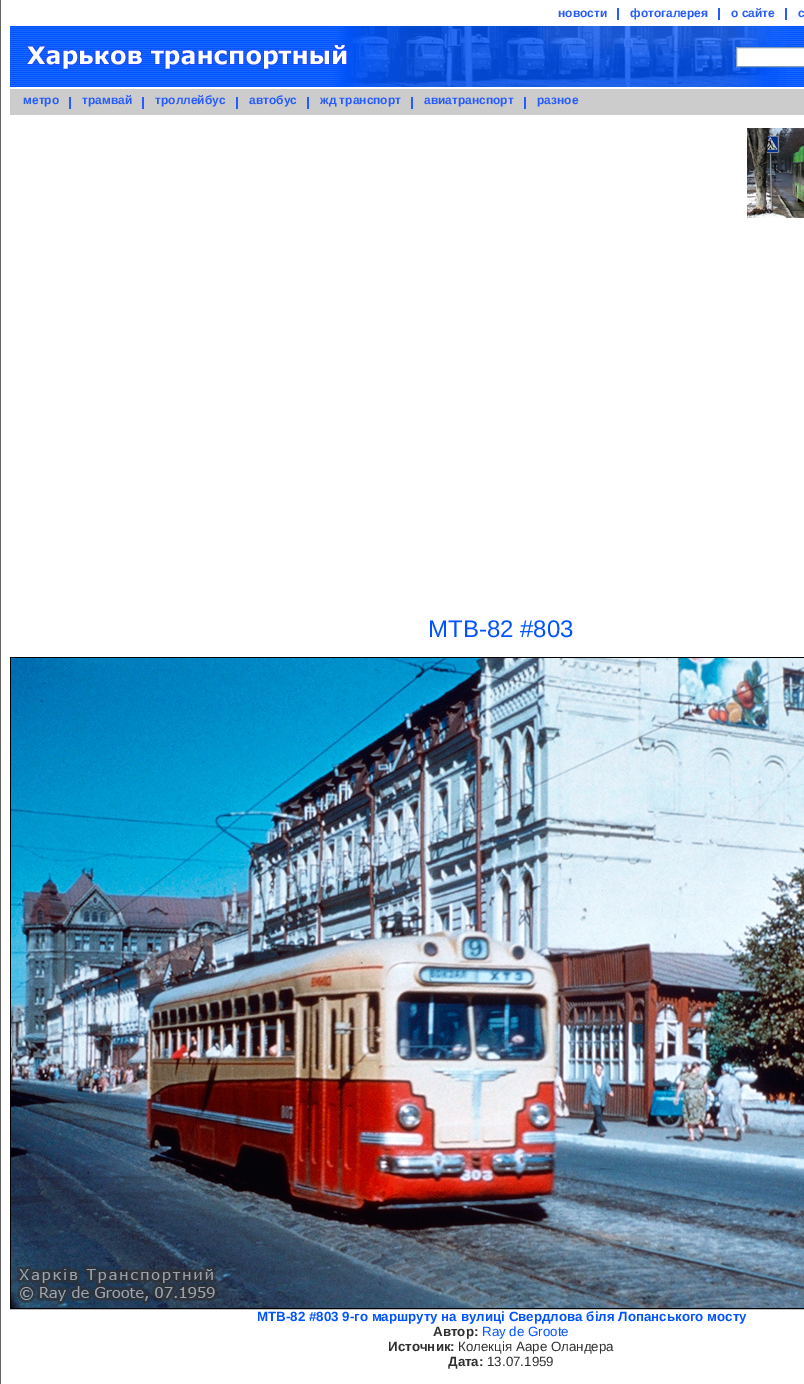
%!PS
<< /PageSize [804 1384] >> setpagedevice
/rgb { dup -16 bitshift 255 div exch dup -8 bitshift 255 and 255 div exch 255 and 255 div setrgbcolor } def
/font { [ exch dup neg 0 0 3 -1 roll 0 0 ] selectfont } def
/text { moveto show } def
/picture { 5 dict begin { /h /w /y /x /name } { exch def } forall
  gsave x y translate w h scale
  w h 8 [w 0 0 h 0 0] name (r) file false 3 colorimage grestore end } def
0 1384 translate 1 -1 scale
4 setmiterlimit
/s1 { /LiberationSans-Bold 12 font 16#265CFF rgb } def
/s2 { /LiberationSans-Regular 24 font 16#0053FF rgb } def
/s3 { /LiberationSans-Bold 13.35 font 16#0053FF rgb } def
/s4 { /LiberationSans-Bold 13.35 font 16#2F2F2F rgb } def
/s5 { /LiberationSans-Regular 13.35 font 16#0053FF rgb } def
/s6 { /LiberationSans-Regular 13.35 font 16#2F2F2F rgb } def
16#FFFFFF rgb
0 0 804 1384 rectfill
16#666666 rgb
0 0 1 1384 rectfill
s1
(новости) 558 17 text
617 8 2 12 rectfill
(фотогалерея) 630 17 text
718 8 2 12 rectfill
(о сайте) 731 17 text
785 8 2 12 rectfill
(с) 798 17 text
16#0055FF rgb
10 26 794 61 rectfill
(pic1.raw) 10 27 794 59 picture
(pic2.raw) 26 26 329 61 picture
(pic3.raw) 355 26 434 61 picture
16#FFFFFF rgb
736.5 47.5 moveto 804.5 47.5 lineto 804.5 66.5 lineto 736.5 66.5 lineto closepath gsave fill grestore
16#7F9DB9 rgb
stroke
16#CCCCCC rgb
10 89 794 26 rectfill
s1
(метро) 23 104 text
69 97 2 12 rectfill
(трамвай) 82 104 text
142 97 2 12 rectfill
(троллейбус) 155 104 text
236 97 2 12 rectfill
(автобус) 249 104 text
307 97 2 12 rectfill
(жд транспорт) 320 104 text
411 97 2 12 rectfill
(авиатранспорт) 424 104 text
524 97 2 12 rectfill
(разное) 537 104 text
(pic4.raw) 747 128 57 90 picture
s2
(МТВ-82 #803) 428 637 text
16#000000 rgb
10.5 657.5 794 651 rectstroke
(pic5.raw) 11 658 793 650 picture
s3
(МТВ-82 #803 9-го маршруту на вулиці Свердлова біля Лопанського мосту) 257 1321 text
s4
(Автор:) 433 1336 text
s5
(Ray de Groote) 482 1336 text
s4
(Источник:) 388 1351 text
s6
(Колекція Ааре Оландера) 458 1351 text
s4
(Дата:) 448 1366 text
s6
(13.07.1959) 487 1366 text
showpage
